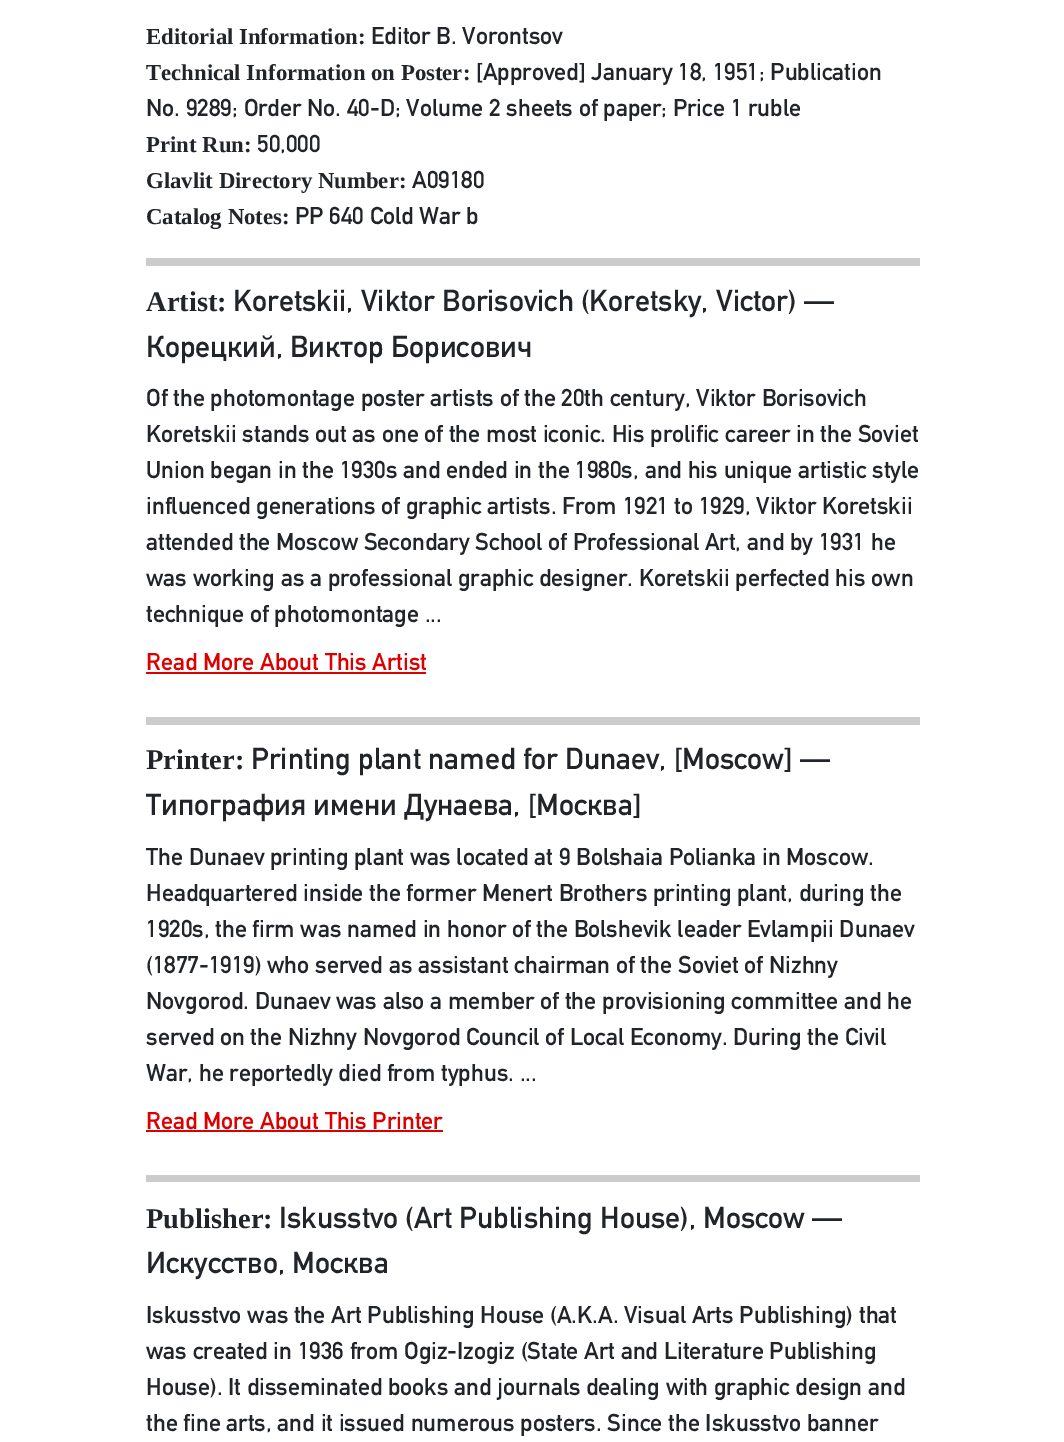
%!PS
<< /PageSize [1064 1442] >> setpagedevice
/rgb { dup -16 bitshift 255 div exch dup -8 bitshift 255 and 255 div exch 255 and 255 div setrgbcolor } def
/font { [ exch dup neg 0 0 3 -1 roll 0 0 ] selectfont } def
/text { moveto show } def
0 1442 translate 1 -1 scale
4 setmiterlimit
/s1 { /LiberationSerif-Bold 22.75 font 16#212529 rgb } def
/s2 { /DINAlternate-Bold 24 font 16#212529 rgb } def
/s3 { /LiberationSerif-Bold 28.5 font 16#212529 rgb } def
/s4 { /DINAlternate-Bold 30 font 16#212529 rgb } def
/s5 { /DINAlternate-Bold 24 font 16#DD0000 rgb } def
16#FFFFFF rgb
0 0 1064 1442 rectfill
s1
(Editorial Information:) 146 44 text
s2
(Editor B. Vorontsov) 371 44 text
s1
(Technical Information on Poster:) 146 80 text
s2
([Approved] January 18, 1951; Publication) 476 80 text
(No. 9289; Order No. 40-D; Volume 2 sheets of paper; Price 1 ruble) 146 116 text
s1
(Print Run:) 146 152 text
s2
(50,000) 257 152 text
s1
(Glavlit Directory Number:) 146 188 text
s2
(A09180) 412 188 text
s1
(Catalog Notes:) 146 224 text
s2
(PP 640 Cold War b) 295 224 text
16#CCCCCC rgb
146 258 774 8 rectfill
s3
(Artist:) 146 311 text
s4
(Koretskii, Viktor Borisovich \(Koretsky, Victor\) —) 233 311 text
(Корецкий, Виктор Борисович) 146 357 text
s2
(Of the photomontage poster artists of the 20th century, Viktor Borisovich) 146 406 text
(Koretskii stands out as one of the most iconic. His prolific career in the Soviet) 146 442 text
(Union began in the 1930s and ended in the 1980s, and his unique artistic style) 146 478 text
(influenced generations of graphic artists. From 1921 to 1929, Viktor Koretskii) 146 514 text
(attended the Moscow Secondary School of Professional Art, and by 1931 he) 146 550 text
(was working as a professional graphic designer. Koretskii perfected his own) 146 586 text
(technique of photomontage ...) 146 622 text
s5
(Read More About This Artist) 146 670 text
146 672 280 2 rectfill
16#CCCCCC rgb
146 717 774 8 rectfill
s3
(Printer:) 146 769 text
s4
(Printing plant named for Dunaev, [Moscow] —) 251 769 text
(Типография имени Дунаева, [Москва]) 146 815 text
s2
(The Dunaev printing plant was located at 9 Bolshaia Polianka in Moscow.) 146 865 text
(Headquartered inside the former Menert Brothers printing plant, during the) 146 901 text
(1920s, the firm was named in honor of the Bolshevik leader Evlampii Dunaev) 146 937 text
(\(1877-1919\) who served as assistant chairman of the Soviet of Nizhny) 146 973 text
(Novgorod. Dunaev was also a member of the provisioning committee and he) 146 1009 text
(served on the Nizhny Novgorod Council of Local Economy. During the Civil) 146 1045 text
(War, he reportedly died from typhus. ...) 146 1081 text
s5
(Read More About This Printer) 146 1129 text
146 1130 297 2 rectfill
16#CCCCCC rgb
146 1175 774 7 rectfill
s3
(Publisher:) 146 1228 text
s4
(Iskusstvo \(Art Publishing House\), Moscow —) 279 1228 text
(Искусство, Москва) 146 1273 text
s2
(Iskusstvo was the Art Publishing House \(A.K.A. Visual Arts Publishing\) that) 146 1323 text
(was created in 1936 from Ogiz-Izogiz \(State Art and Literature Publishing) 146 1359 text
(House\). It disseminated books and journals dealing with graphic design and) 146 1395 text
(the fine arts, and it issued numerous posters. Since the Iskusstvo banner) 146 1431 text
showpage
